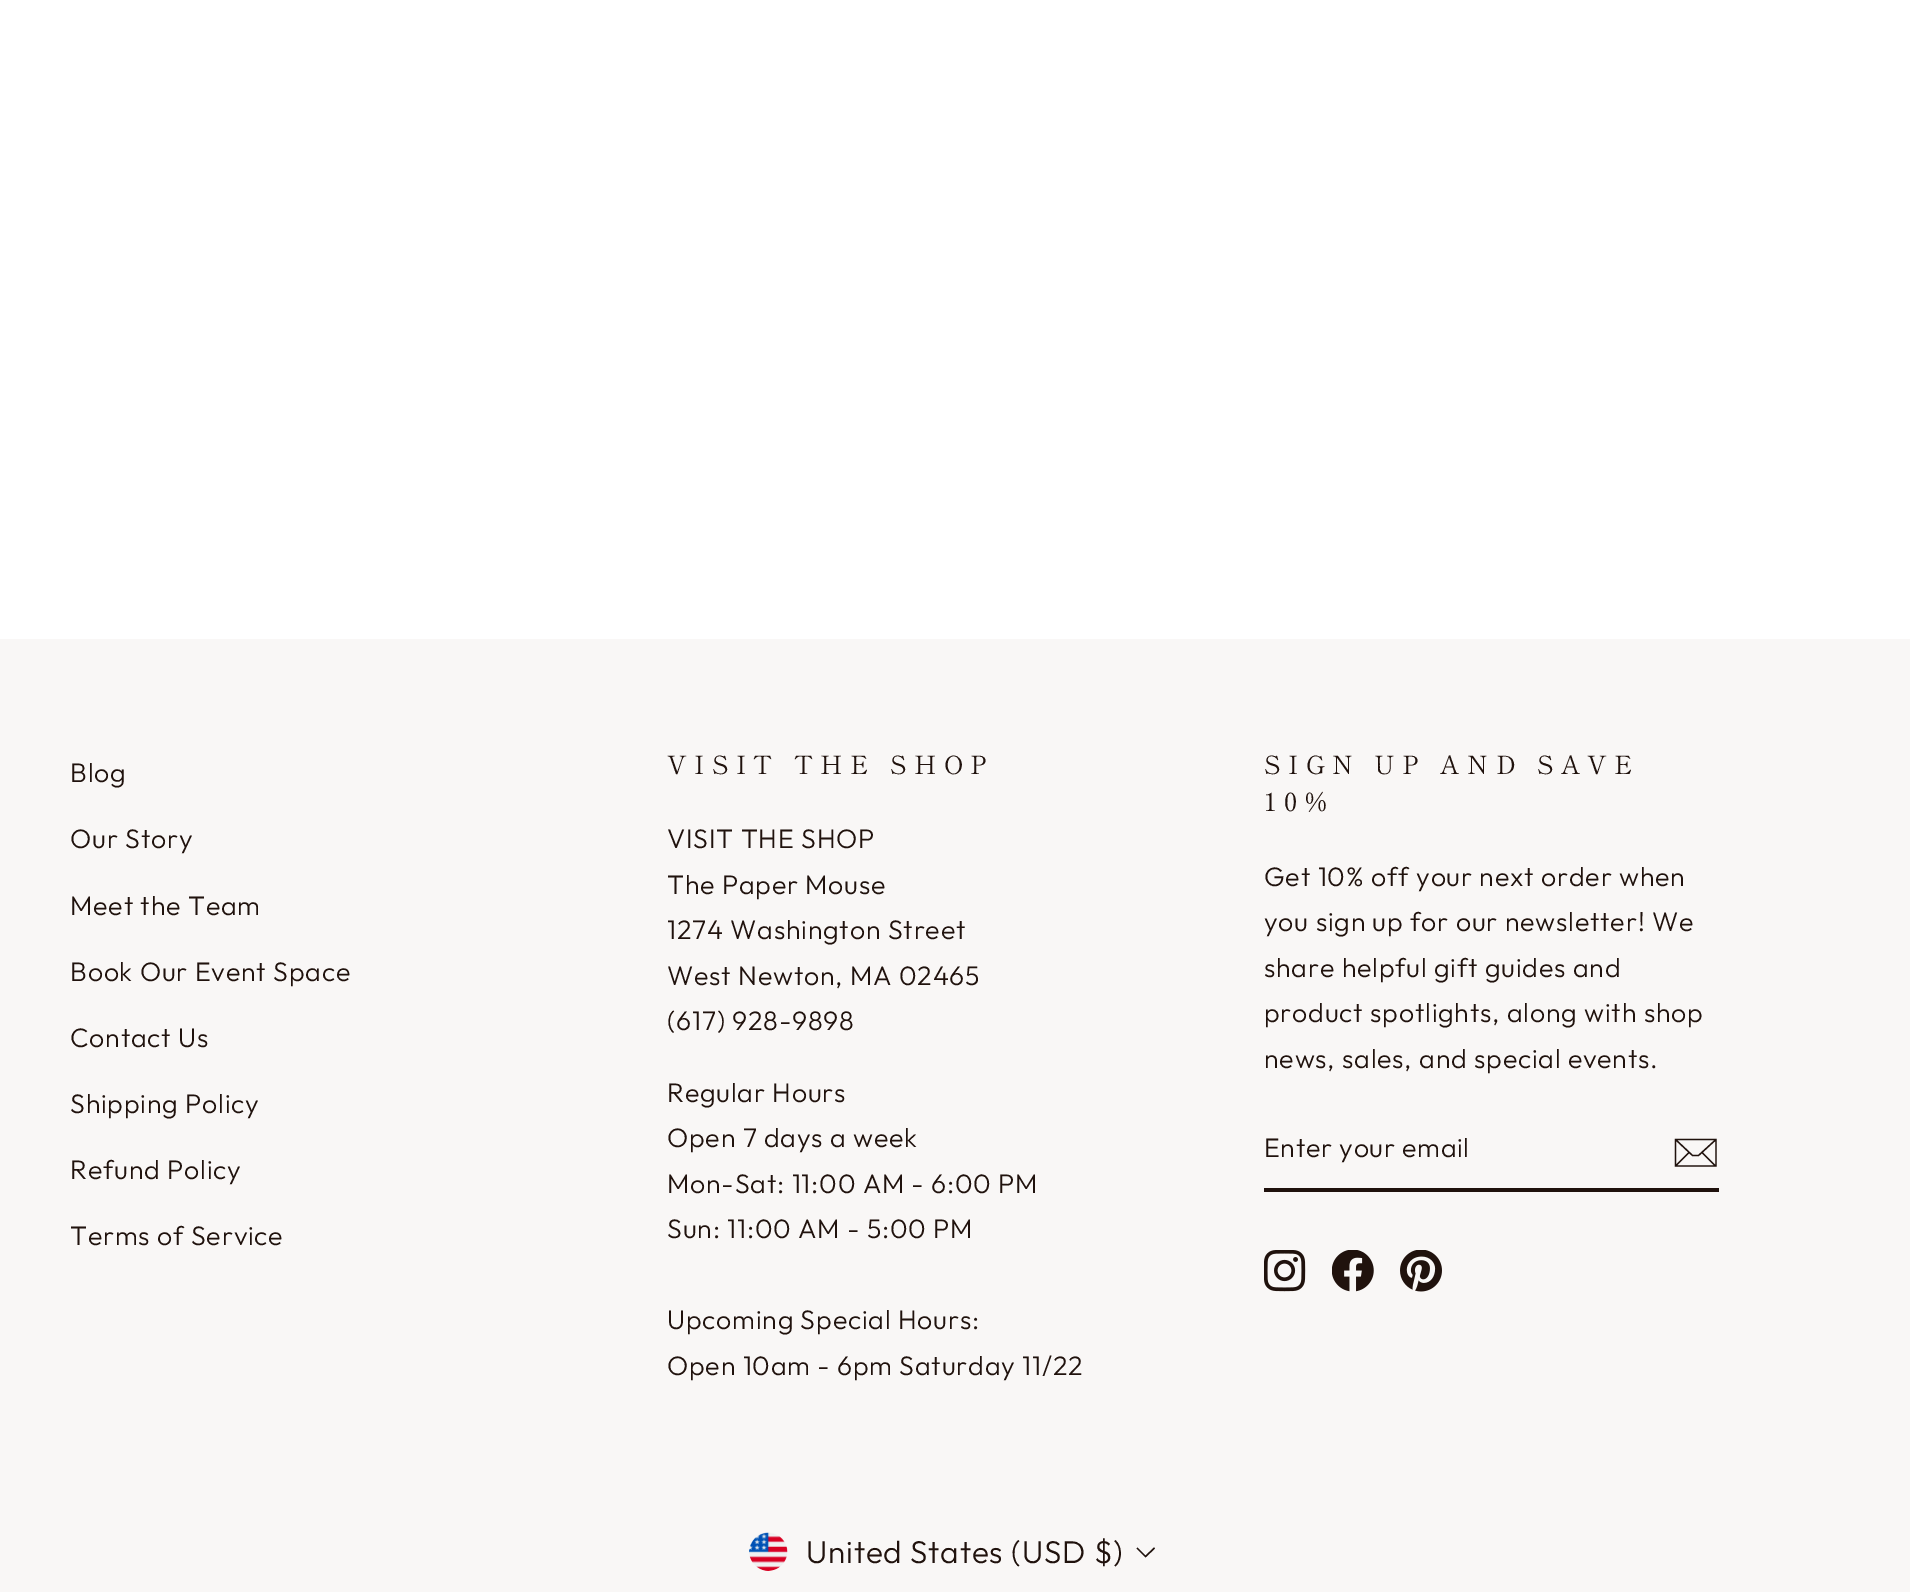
%!PS
<< /PageSize [1910 1592] >> setpagedevice
/rgb { dup -16 bitshift 255 div exch dup -8 bitshift 255 and 255 div exch 255 and 255 div setrgbcolor } def
/font { [ exch dup neg 0 0 3 -1 roll 0 0 ] selectfont } def
/picture { 5 dict begin { /h /w /y /x /name } { exch def } forall
  gsave x y translate w h scale
  w h 8 [w 0 0 h 0 0] name (r) file false 3 colorimage grestore end } def
0 1592 translate 1 -1 scale
4 setmiterlimit
16#FFFFFF rgb
0 0 1910 1592 rectfill
16#F9F7F6 rgb
0 639 1910 953 rectfill
/Outfit-Light 26.75 font
16#20120D rgb
70 782 moveto 0.8 0 (Blog) ashow
70 848 moveto 0.8 0 (Our Story) ashow
70 915 moveto 0.8 0 (Meet the Team) ashow
70 981 moveto 0.8 0 (Book Our Event Space) ashow
70 1047 moveto 0.8 0 (Contact Us) ashow
70 1113 moveto 0.8 0 (Shipping Policy) ashow
70 1179 moveto 0.8 0 (Refund Policy) ashow
70 1245 moveto 0.8 0 (Terms of Service) ashow
/ShipporiMincho-Regular 25.25 font
667 774 moveto 7.5 0 (VISIT THE SHOP) ashow
/Outfit-Light 26.75 font
667 848 moveto 0.8 0 (VISIT THE SHOP) ashow
667 894 moveto 0.8 0 (The Paper Mouse) ashow
667 939 moveto 0.8 0 (1274 Washington Street) ashow
667 985 moveto 0.8 0 (West Newton, MA 02465) ashow
667 1030 moveto 0.8 0 (\(617\) 928-9898) ashow
667 1102 moveto 0.8 0 (Regular Hours) ashow
667 1147 moveto 0.8 0 (Open 7 days a week) ashow
667 1193 moveto 0.8 0 (Mon-Sat: 11:00 AM - 6:00 PM) ashow
667 1238 moveto 0.8 0 (Sun: 11:00 AM - 5:00 PM) ashow
667 1329 moveto 0.8 0 (Upcoming Special Hours:) ashow
667 1375 moveto 0.8 0 (Open 10am - 6pm Saturday 11/22) ashow
/ShipporiMincho-Regular 25.25 font
1264 774 moveto 7.5 0 (SIGN UP AND SAVE) ashow
1264 811 moveto 7.5 0 (10%) ashow
/Outfit-Light 26.75 font
1264 886 moveto 0.8 0 (Get 10% off your next order when) ashow
1264 931 moveto 0.8 0 (you sign up for our newsletter! We) ashow
1264 977 moveto 0.8 0 (share helpful gift guides and) ashow
1264 1022 moveto 0.8 0 (product spotlights, along with shop) ashow
1264 1068 moveto 0.8 0 (news, sales, and special events.) ashow
1264 1188 455 4 rectfill
1264 1157 moveto 0.7 0 (Enter your email) ashow
1.3 setlinewidth
1716 1166 moveto 1675.5 1166 lineto 1675.5 1139.5 lineto 1716 1139.5 lineto closepath 1675.5 1139.5 moveto 1692.5 1155.5 lineto 1698.5 1155.5 lineto 1716 1139.5 lineto 1689 1152.5 moveto 1676 1165.5 lineto 1715.5 1166 moveto 1702 1152.5 lineto stroke
(pic1.raw) 1264 1250 42 42 picture
(pic2.raw) 1332 1250 42 42 picture
(pic3.raw) 1400 1250 42 42 picture
(pic4.raw) 749 1532 39 39 picture
/Outfit-Light 31.5 font
806 1563 moveto 0.8 0 (United States \(USD $\)) ashow
1.4 setlinewidth
1137 1548 moveto 1145.5 1556.5 lineto 1154.5 1548 lineto stroke
showpage
